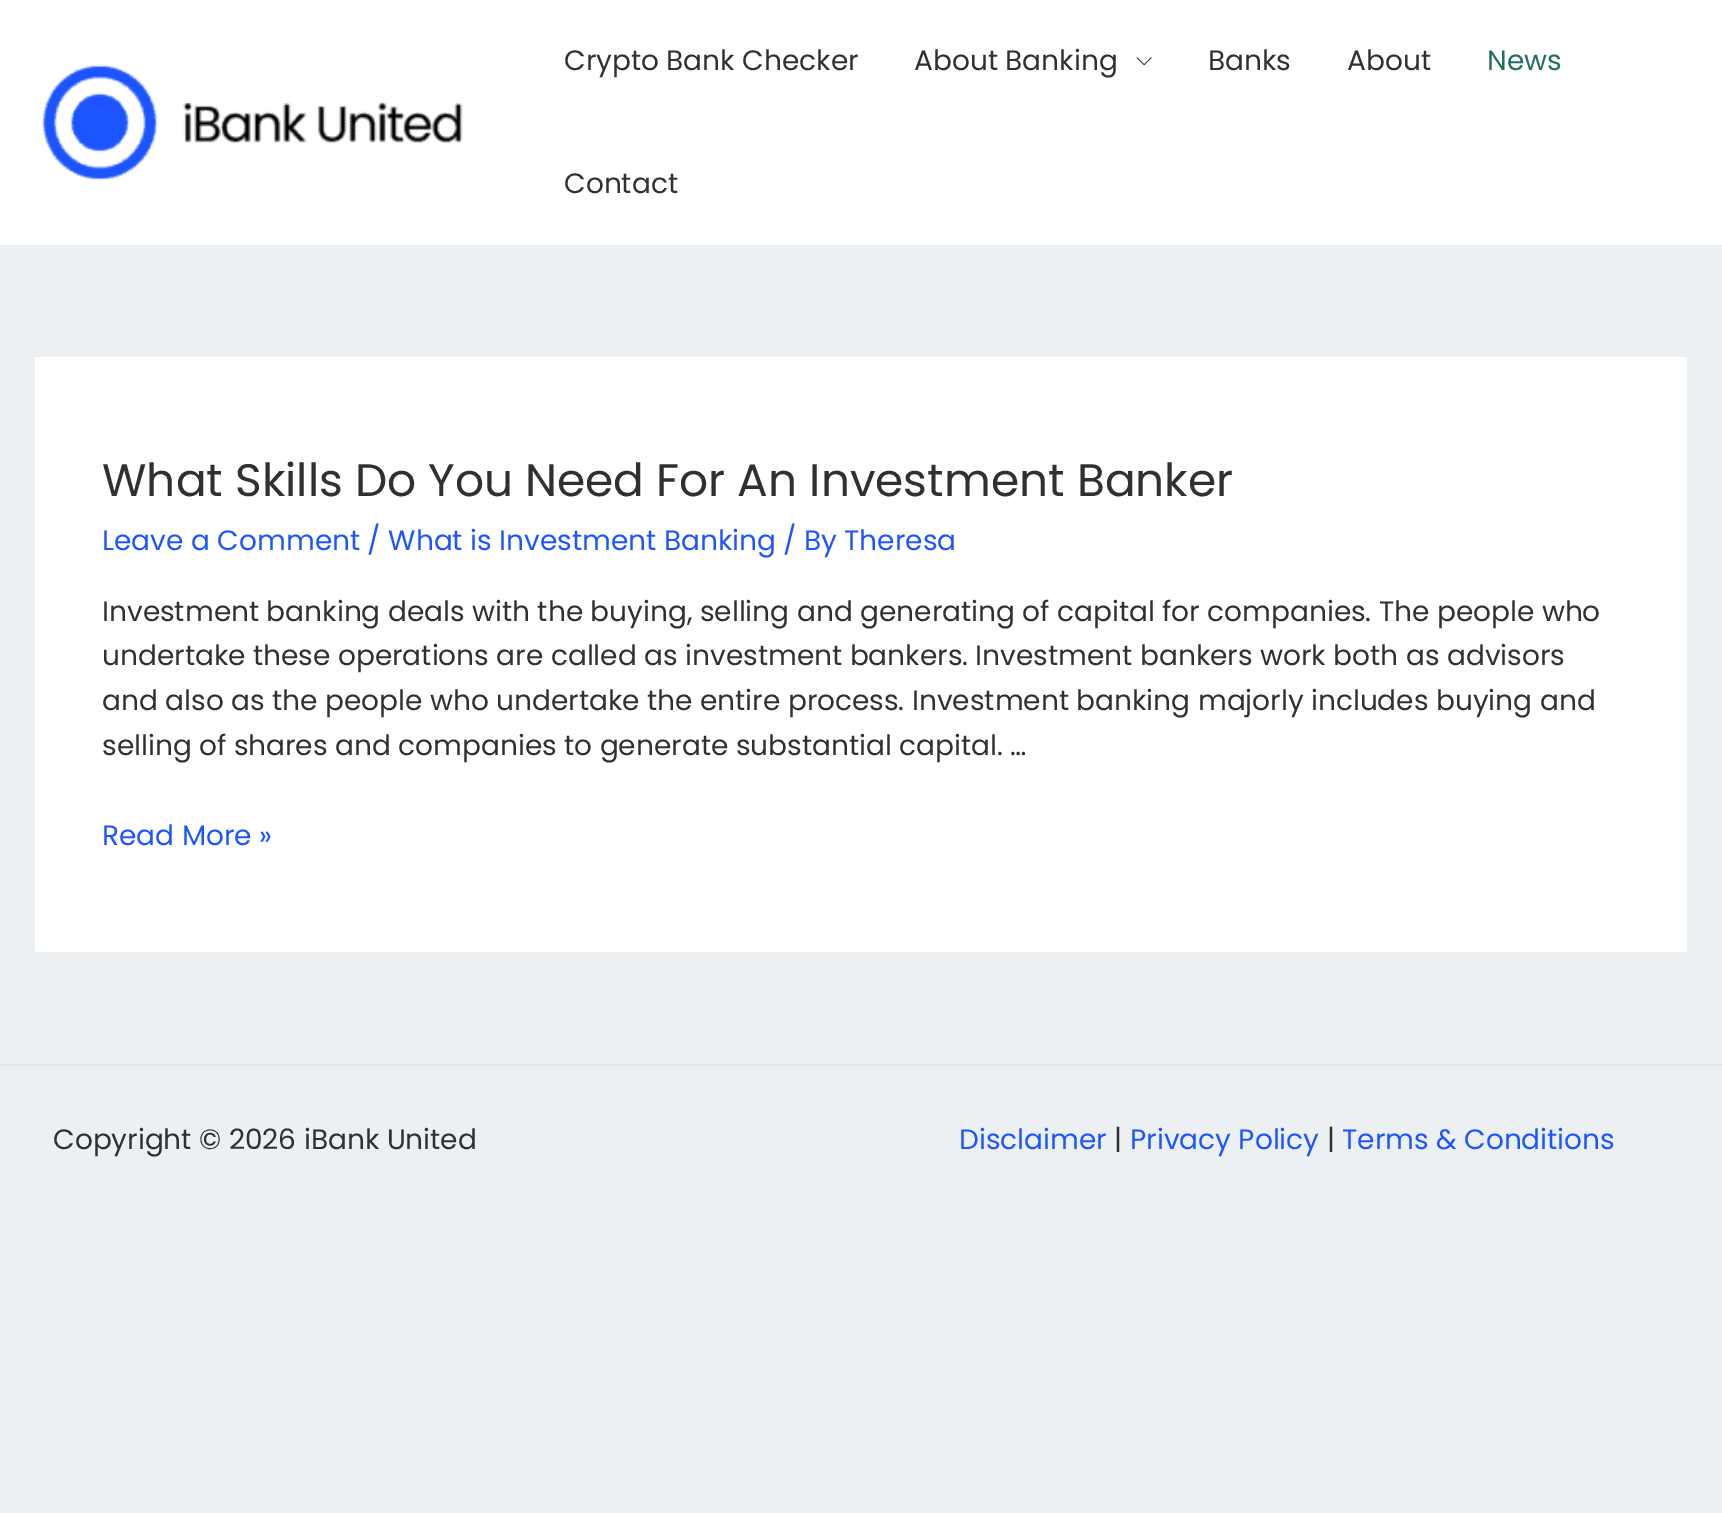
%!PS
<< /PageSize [1722 1513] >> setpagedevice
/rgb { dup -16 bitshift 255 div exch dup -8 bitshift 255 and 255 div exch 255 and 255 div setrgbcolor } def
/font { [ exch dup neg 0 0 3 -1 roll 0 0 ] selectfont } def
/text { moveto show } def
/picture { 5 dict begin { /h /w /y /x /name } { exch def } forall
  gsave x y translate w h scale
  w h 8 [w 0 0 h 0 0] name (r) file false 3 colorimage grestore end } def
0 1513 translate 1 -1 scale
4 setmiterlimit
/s1 { /Poppins-Regular 28 font 16#303030 rgb } def
/s2 { /Poppins-Regular 28 font 16#216F62 rgb } def
/s3 { /Poppins-Regular 45.5 font 16#303030 rgb } def
/s4 { /Poppins-Regular 28 font 16#1C55FF rgb } def
16#ECF0F2 rgb
0 0 1722 1513 rectfill
16#FFFFFF rgb
0 0 1722 245 rectfill
(pic1.raw) 42 64 421 117 picture
s1
(Crypto Bank Checker) 564 70 text
(About Banking) 914 70 text
(pic2.raw) 1136 57 16 9 picture
(Banks) 1208 70 text
(About) 1347 70 text
s2
(News) 1487 70 text
s1
(Contact) 564 193 text
16#FFFFFF rgb
35 357 1652 595 rectfill
s3
(What Skills Do You Need For An Investment Banker) 102 496 text
s4
(Leave a Comment / What is Investment Banking / By Theresa) 102 550 text
s1
(Investment banking deals with the buying, selling and generating of capital for companies. The people who) 102 621 text
(undertake these operations are called as investment bankers. Investment bankers work both as advisors) 102 665 text
(and also as the people who undertake the entire process. Investment banking majorly includes buying and) 102 710 text
(selling of shares and companies to generate substantial capital. …) 102 755 text
s4
(Read More ») 102 845 text
16#E5E5E5 rgb
0 1064 1722 2 rectfill
s1
(Copyright © 2026 iBank United) 53 1149 text
s4
(Disclaimer) 959 1149 text
s1
(|) 1114 1149 text
s4
(Privacy Policy) 1130 1149 text
s1
(|) 1327 1149 text
s4
(Terms & Conditions) 1342 1149 text
showpage
